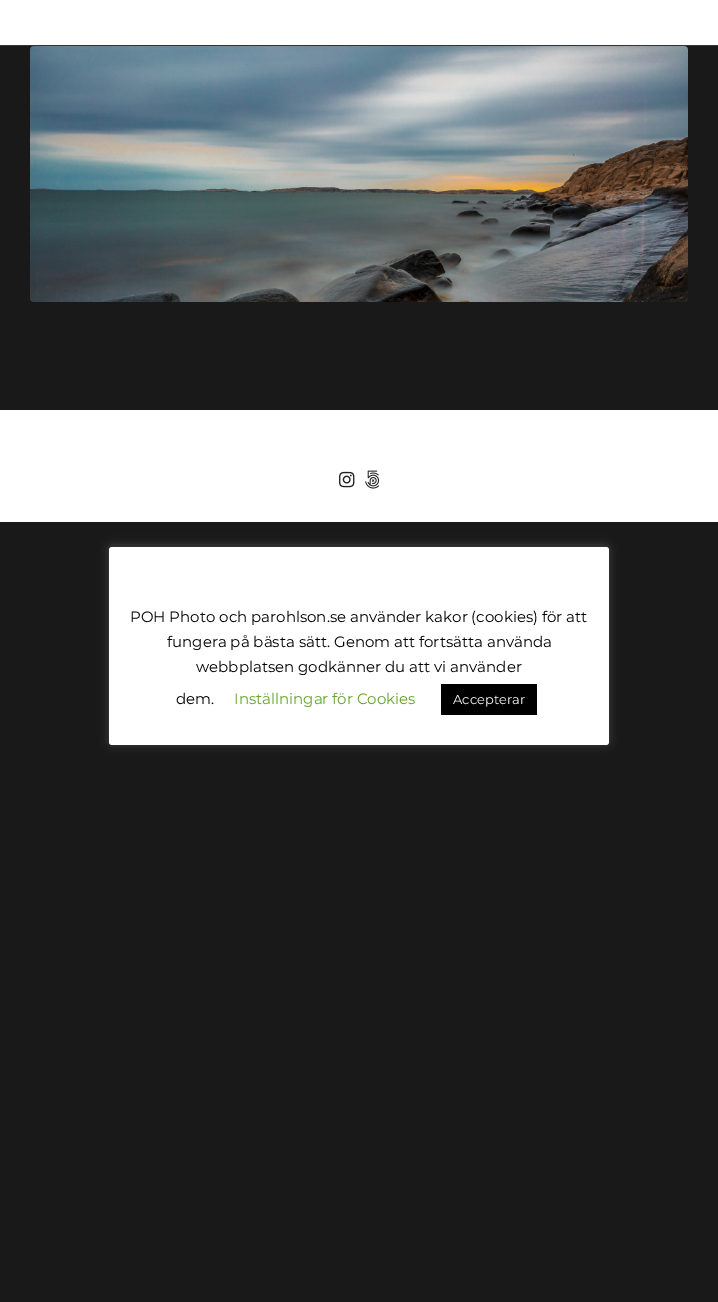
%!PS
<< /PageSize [718 1302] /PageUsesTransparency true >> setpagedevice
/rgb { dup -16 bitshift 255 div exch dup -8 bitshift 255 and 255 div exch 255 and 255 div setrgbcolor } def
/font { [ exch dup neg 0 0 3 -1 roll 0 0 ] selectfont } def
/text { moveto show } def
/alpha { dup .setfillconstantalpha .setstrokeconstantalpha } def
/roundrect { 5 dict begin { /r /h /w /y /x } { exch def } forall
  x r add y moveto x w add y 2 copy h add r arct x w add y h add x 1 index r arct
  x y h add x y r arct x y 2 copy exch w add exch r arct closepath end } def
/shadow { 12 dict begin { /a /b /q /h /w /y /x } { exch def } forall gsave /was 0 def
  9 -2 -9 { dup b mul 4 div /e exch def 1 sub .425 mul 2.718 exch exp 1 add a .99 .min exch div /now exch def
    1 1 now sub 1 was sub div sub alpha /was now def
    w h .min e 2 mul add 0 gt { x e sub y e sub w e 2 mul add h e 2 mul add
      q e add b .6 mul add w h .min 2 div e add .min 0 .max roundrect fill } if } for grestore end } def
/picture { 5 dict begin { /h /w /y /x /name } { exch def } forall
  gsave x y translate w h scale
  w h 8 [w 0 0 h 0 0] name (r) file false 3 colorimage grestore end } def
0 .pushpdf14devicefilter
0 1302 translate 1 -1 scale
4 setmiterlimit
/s1 { /Montserrat-Regular 15 font 16#000000 rgb } def
/s2 { /Montserrat-Regular 15 font 16#62A329 rgb } def
/s3 { /Montserrat-Regular 13 font 16#FFFFFF rgb } def
16#191919 rgb
0 0 718 1302 rectfill
16#FFFFFF rgb
0 0 718 45 rectfill
16#333333 rgb
0 45 718 1 rectfill
(pic1.raw) 30 46 658 256 picture
16#FFFFFF rgb
0 410 718 112 rectfill
(pic2.raw) 339 471 16 17 picture
(pic3.raw) 365 470 15 19 picture
16#ACABAB rgb
109 546 500 198 3 5 0.3 shadow
16#FFFFFF rgb
109 547 500 198 3 roundrect fill
s1
(POH Photo och parohlson.se använder kakor \(cookies\) för att) 130 622 text
(fungera på bästa sätt. Genom att fortsätta använda) 167 647 text
(webbplatsen godkänner du att vi använder) 196 672 text
(dem.) 176 704 text
s2
(Inställningar för Cookies) 234 704 text
16#000000 rgb
441 684 96 31 rectfill
s3
(Accepterar) 453 704 text
.poppdf14devicefilter showpage
